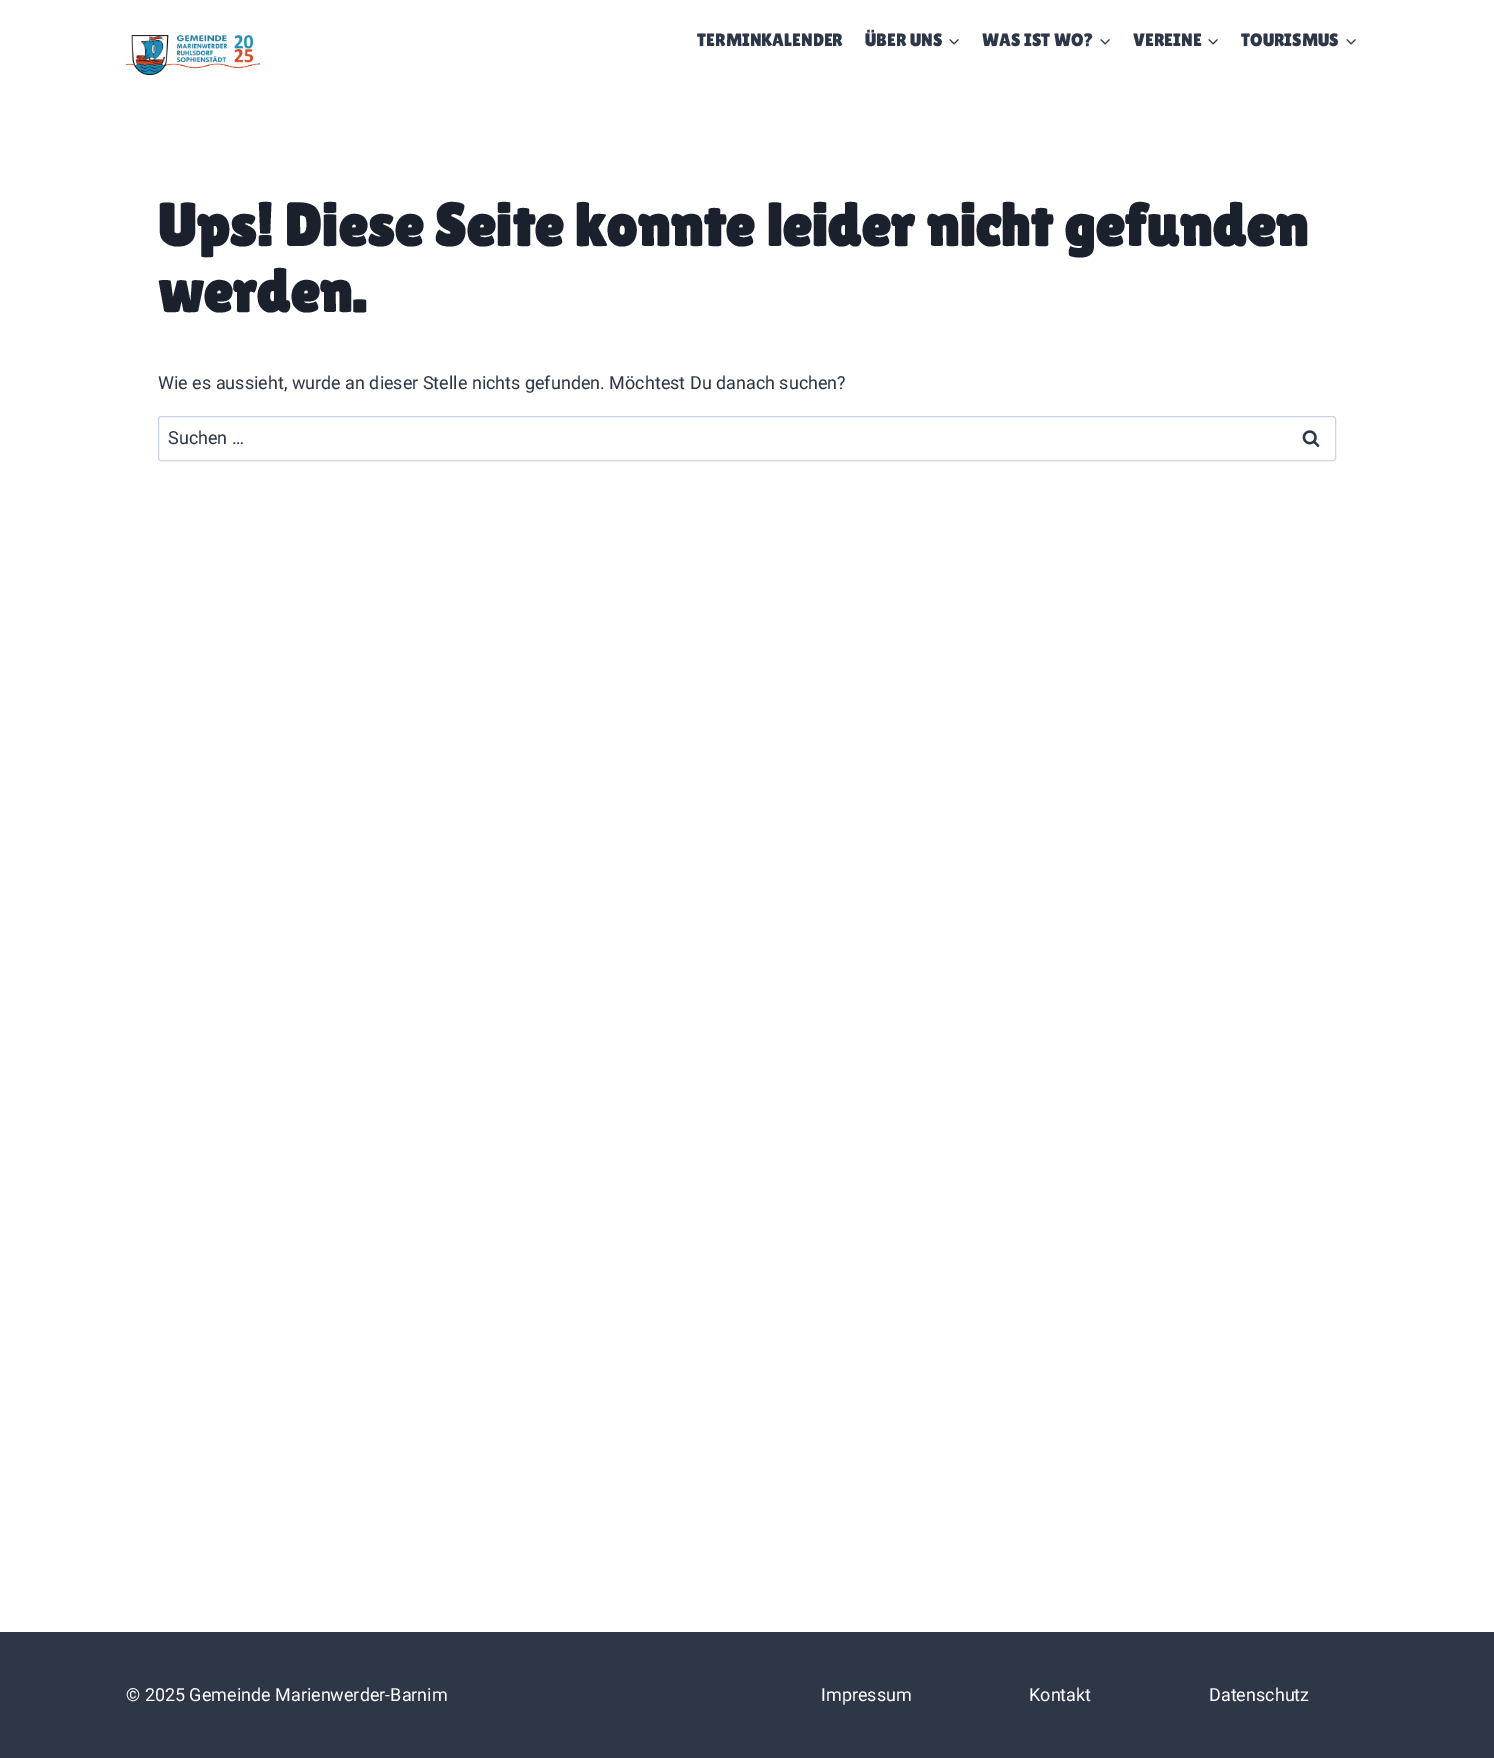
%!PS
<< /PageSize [1494 1758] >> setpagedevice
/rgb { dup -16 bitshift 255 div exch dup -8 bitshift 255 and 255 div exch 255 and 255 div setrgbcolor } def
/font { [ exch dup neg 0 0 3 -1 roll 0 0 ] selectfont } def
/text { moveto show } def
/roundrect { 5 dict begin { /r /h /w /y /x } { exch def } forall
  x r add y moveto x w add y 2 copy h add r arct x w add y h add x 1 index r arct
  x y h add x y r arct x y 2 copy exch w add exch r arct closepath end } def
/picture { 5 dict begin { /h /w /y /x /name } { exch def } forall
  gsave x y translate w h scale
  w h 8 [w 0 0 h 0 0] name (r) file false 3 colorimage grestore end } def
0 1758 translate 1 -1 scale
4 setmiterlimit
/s1 { /LilitaOne-Regular 18 font 16#2D3748 rgb } def
/s2 { /LilitaOne-Bold 60 font 16#1A202C rgb } def
/s3 { /Roboto-Regular 18 font 16#2D3748 rgb } def
/s4 { /Roboto-Regular 18 font 16#FFFFFF rgb } def
16#FFFFFF rgb
0 0 1494 1758 rectfill
(pic1.raw) 126 35 134 40 picture
s1
(TERMINKALENDER) 697 46 text
(ÜBER UNS) 865 46 text
(pic2.raw) 949 39 10 6 picture
(WAS IST WO?) 982 46 text
(pic2.raw) 1100 39 10 6 picture
(VEREINE) 1133 46 text
(pic2.raw) 1208 39 10 6 picture
(TOURISMUS) 1241 46 text
(pic2.raw) 1346 39 10 6 picture
s2
(Ups! Diese Seite konnte leider nicht gefunden) 158 246 text
(werden.) 158 312 text
s3
(Wie es aussieht, wurde an dieser Stelle nichts gefunden. Möchtest Du danach suchen?) 158 389 text
16#CBD5E0 rgb
158.5 416.5 1177 44 2.5 roundrect stroke
s3
(Suchen …) 168 444 text
(pic3.raw) 1302 430 18 17 picture
0 1632 1494 126 rectfill
s4
(© 2025 Gemeinde Marienwerder-Barnim) 126 1701 text
(Impressum) 821 1701 text
(Kontakt) 1029 1701 text
(Datenschutz) 1209 1701 text
showpage
